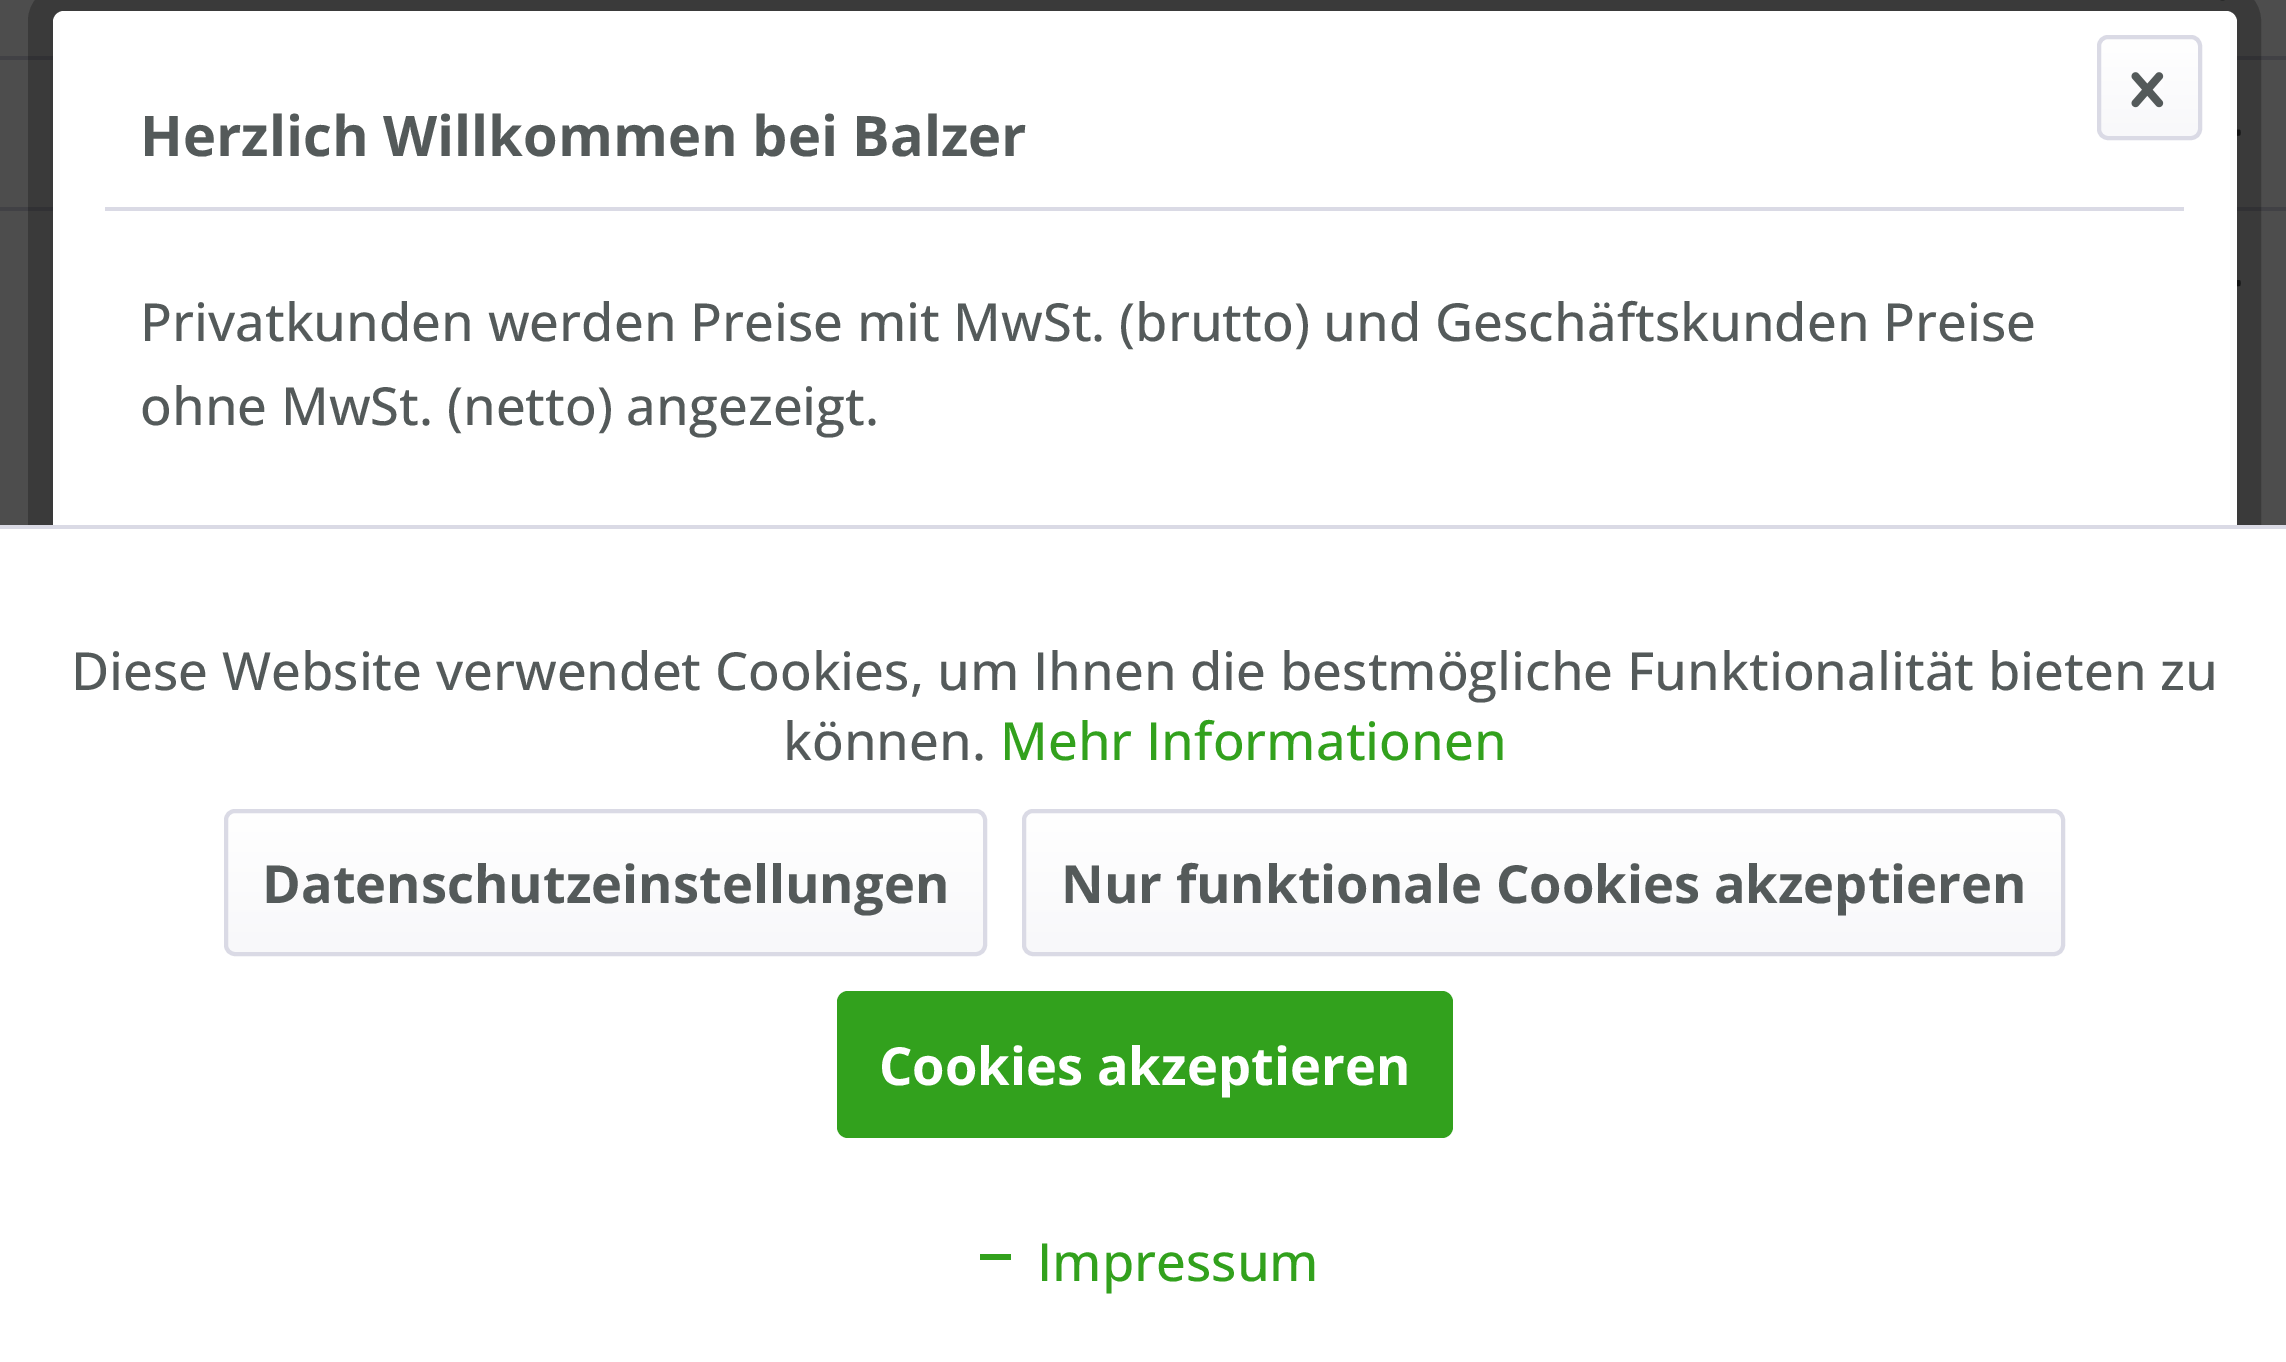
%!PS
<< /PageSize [2286 1362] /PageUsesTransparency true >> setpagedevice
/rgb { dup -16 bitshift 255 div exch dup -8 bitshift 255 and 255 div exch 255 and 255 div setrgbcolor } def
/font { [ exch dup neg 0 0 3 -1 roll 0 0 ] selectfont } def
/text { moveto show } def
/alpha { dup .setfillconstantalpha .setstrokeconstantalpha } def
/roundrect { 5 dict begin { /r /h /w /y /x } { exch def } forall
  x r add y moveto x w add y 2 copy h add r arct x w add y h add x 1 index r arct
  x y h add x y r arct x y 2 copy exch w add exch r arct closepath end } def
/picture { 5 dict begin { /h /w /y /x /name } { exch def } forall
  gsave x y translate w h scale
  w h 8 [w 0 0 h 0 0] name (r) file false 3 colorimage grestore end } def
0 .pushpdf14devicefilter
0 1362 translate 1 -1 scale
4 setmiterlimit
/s1 { /OpenSans-Bold 56 font 16#545A5A rgb } def
/s2 { /OpenSans-Medium 52.5 font 16#545A5A rgb } def
/s3 { /OpenSans-Medium 52.5 font 16#32A11D rgb } def
/s4 { /OpenSans-Bold 52.5 font 16#545A5A rgb } def
/s5 { /OpenSans-Bold 52.5 font 16#FFFFFF rgb } def
16#4D4D4D rgb
0 0 2286 1362 rectfill
(pic1.raw) 2220 0 5 1 picture
16#414145 rgb
0 56 2286 4 rectfill
(pic2.raw) 2237 129 4 7 picture
0 207 2286 4 rectfill
(pic3.raw) 2237 280 4 7 picture
0.25 alpha
16#000000 rgb
25 setlinewidth
40.5 -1.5 2208 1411 22.5 roundrect stroke
1 alpha
16#FFFFFF rgb
53 11 2184 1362 11 roundrect fill
16#DADAE5 rgb
105 207 2079 4 rectfill
s1
(Herzlich Willkommen bei Balzer) 140 156 text
gsave 2100 39 98 98 7 roundrect clip newpath
<< /ShadingType 2 /ColorSpace /DeviceRGB /Coords [2149 38 2149 137] /Extend [true true] /Function << /FunctionType 2 /Domain [0 1] /C0 [1 1 1] /C1 [0.973 0.973 0.98] /N 1 >> >> shfill grestore
16#DADAE5 rgb
4 setlinewidth
2099 37 101 101 9 roundrect stroke
(pic4.raw) 2131 72 33 36 picture
s2
(Privatkunden werden Preise mit MwSt. \(brutto\) und Geschäftskunden Preise) 140 341 text
(ohne MwSt. \(netto\) angezeigt.) 140 425 text
16#FFFFFF rgb
0 529 2286 833 rectfill
16#DADAE5 rgb
0 525 2286 4 rectfill
s2
(Diese Website verwendet Cookies, um Ihnen die bestmögliche Funktionalität bieten zu) 71 690 text
(können.) 783 760 text
s3
(Mehr Informationen) 1000 760 text
gsave 228 812 756 140 7 roundrect clip newpath
<< /ShadingType 2 /ColorSpace /DeviceRGB /Coords [606 812 606 952] /Extend [true true] /Function << /FunctionType 2 /Domain [0 1] /C0 [1 1 1] /C1 [0.973 0.973 0.98] /N 1 >> >> shfill grestore
16#DADAE5 rgb
226 811 759 143 9 roundrect stroke
s4
(Datenschutzeinstellungen) 262 903 text
gsave 1026 812 1036 140 7 roundrect clip newpath
<< /ShadingType 2 /ColorSpace /DeviceRGB /Coords [1544 812 1544 952] /Extend [true true] /Function << /FunctionType 2 /Domain [0 1] /C0 [1 1 1] /C1 [0.973 0.973 0.98] /N 1 >> >> shfill grestore
16#DADAE5 rgb
1024 811 1039 143 9 roundrect stroke
s4
(Nur funktionale Cookies akzeptieren) 1061 903 text
16#32A11D rgb
837 991 616 147 11 roundrect fill
s5
(Cookies akzeptieren) 879 1085 text
s3
(Impressum) 1037 1281 text
980 1254 31 6 rectfill
.poppdf14devicefilter showpage
